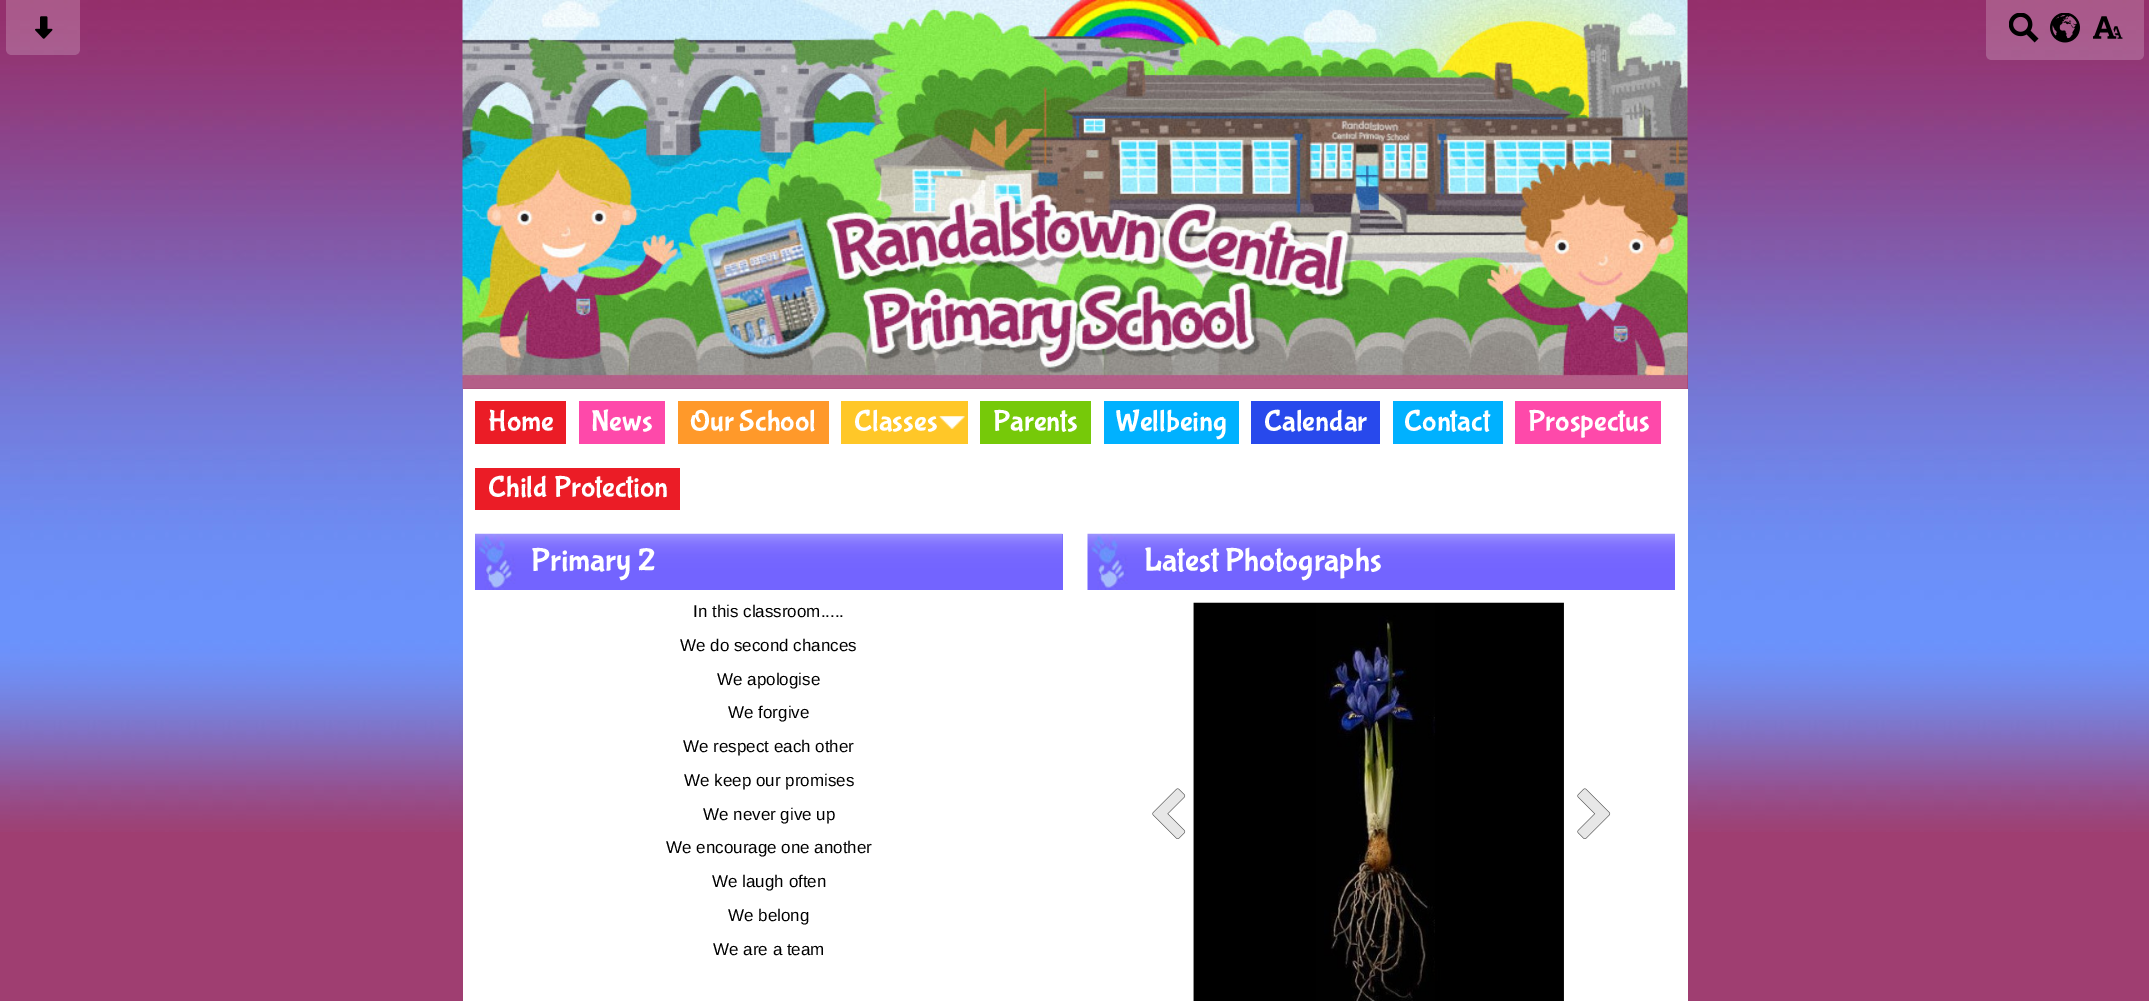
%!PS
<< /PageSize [2149 1001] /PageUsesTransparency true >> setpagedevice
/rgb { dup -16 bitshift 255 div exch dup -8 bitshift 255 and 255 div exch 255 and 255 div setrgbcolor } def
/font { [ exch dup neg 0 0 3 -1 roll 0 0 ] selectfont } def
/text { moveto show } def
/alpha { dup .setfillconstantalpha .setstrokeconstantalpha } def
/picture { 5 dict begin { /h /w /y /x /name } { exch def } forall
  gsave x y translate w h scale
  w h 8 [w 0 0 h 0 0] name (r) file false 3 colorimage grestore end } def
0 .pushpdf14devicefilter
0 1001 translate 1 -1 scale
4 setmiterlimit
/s1 { /BubblegumSans-Regular 30 font 16#FFFFFF rgb } def
/s2 { /BubblegumSans-Regular 33 font 16#FFFFFF rgb } def
/s3 { /LiberationSans-Regular 17 font 16#000000 rgb } def
16#9F3E71 rgb
0 0 2149 1001 rectfill
(pic1.raw) 0 0 2149 832 picture
0.2 alpha
16#FFFFFF rgb
6 0 moveto 80 0 lineto 80 49 lineto 80 52.5 77.5 55 74 55 curveto 12 55 lineto 8.5 55 6 52.5 6 49 curveto closepath fill
1 alpha
(pic2.raw) 35 16 18 23 picture
0.2 alpha
1986 0 moveto 2144 0 lineto 2144 54 lineto 2144 57.5 2141.5 60 2138 60 curveto 1992 60 lineto 1988.5 60 1986 57.5 1986 54 curveto closepath fill
1 alpha
(pic3.raw) 2009 13 30 30 picture
(pic4.raw) 2050 13 30 30 picture
(pic5.raw) 2093 16 30 23 picture
16#9D3B6E rgb
463 0 1225 389 rectfill
(pic6.raw) 462 0 1226 389 picture
16#FFFFFF rgb
463 389 1225 612 rectfill
16#EB1C26 rgb
475 401 91 43 rectfill
s1
(Home) 488 430 text
16#FE49AA rgb
579 401 86 43 rectfill
s1
(News) 591 430 text
16#FF992A rgb
678 401 151 43 rectfill
s1
(Our School) 690 430 text
16#FFC728 rgb
841 401 127 43 rectfill
(pic7.raw) 938 416 27 13 picture
s1
(Classes) 854 430 text
16#76C909 rgb
980 401 111 43 rectfill
s1
(Parents) 993 430 text
16#00B1FF rgb
1104 401 135 43 rectfill
s1
(Wellbeing) 1116 430 text
16#2849EC rgb
1251 401 129 43 rectfill
s1
(Calendar) 1264 430 text
16#00B1FF rgb
1393 401 110 43 rectfill
s1
(Contact) 1404 430 text
16#FE49AA rgb
1515 401 146 43 rectfill
s1
(Prospectus) 1528 430 text
16#EB1C26 rgb
475 468 205 42 rectfill
s1
(Child Protection) 488 496 text
16#7364FF rgb
1062 534 1 56 rectfill
(pic8.raw) 475 533 588 57 picture
s2
(Primary 2) 531 570 text
s3
(In this classroom.....) 693 617 text
(We do second chances) 680 651 text
(We apologise) 717 685 text
(We forgive) 728 718 text
(We respect each other) 683 752 text
(We keep our promises) 684 786 text
(We never give up) 703 820 text
(We encourage one another) 666 853 text
(We laugh often) 712 887 text
(We belong) 728 921 text
(We are a team) 713 955 text
(pic9.raw) 1087 533 588 57 picture
s2
(Latest Photographs) 1144 570 text
(pic10.raw) 1152 788 34 51 picture
(pic11.raw) 1193 602 371 399 picture
(pic12.raw) 1577 788 34 51 picture
.poppdf14devicefilter showpage
